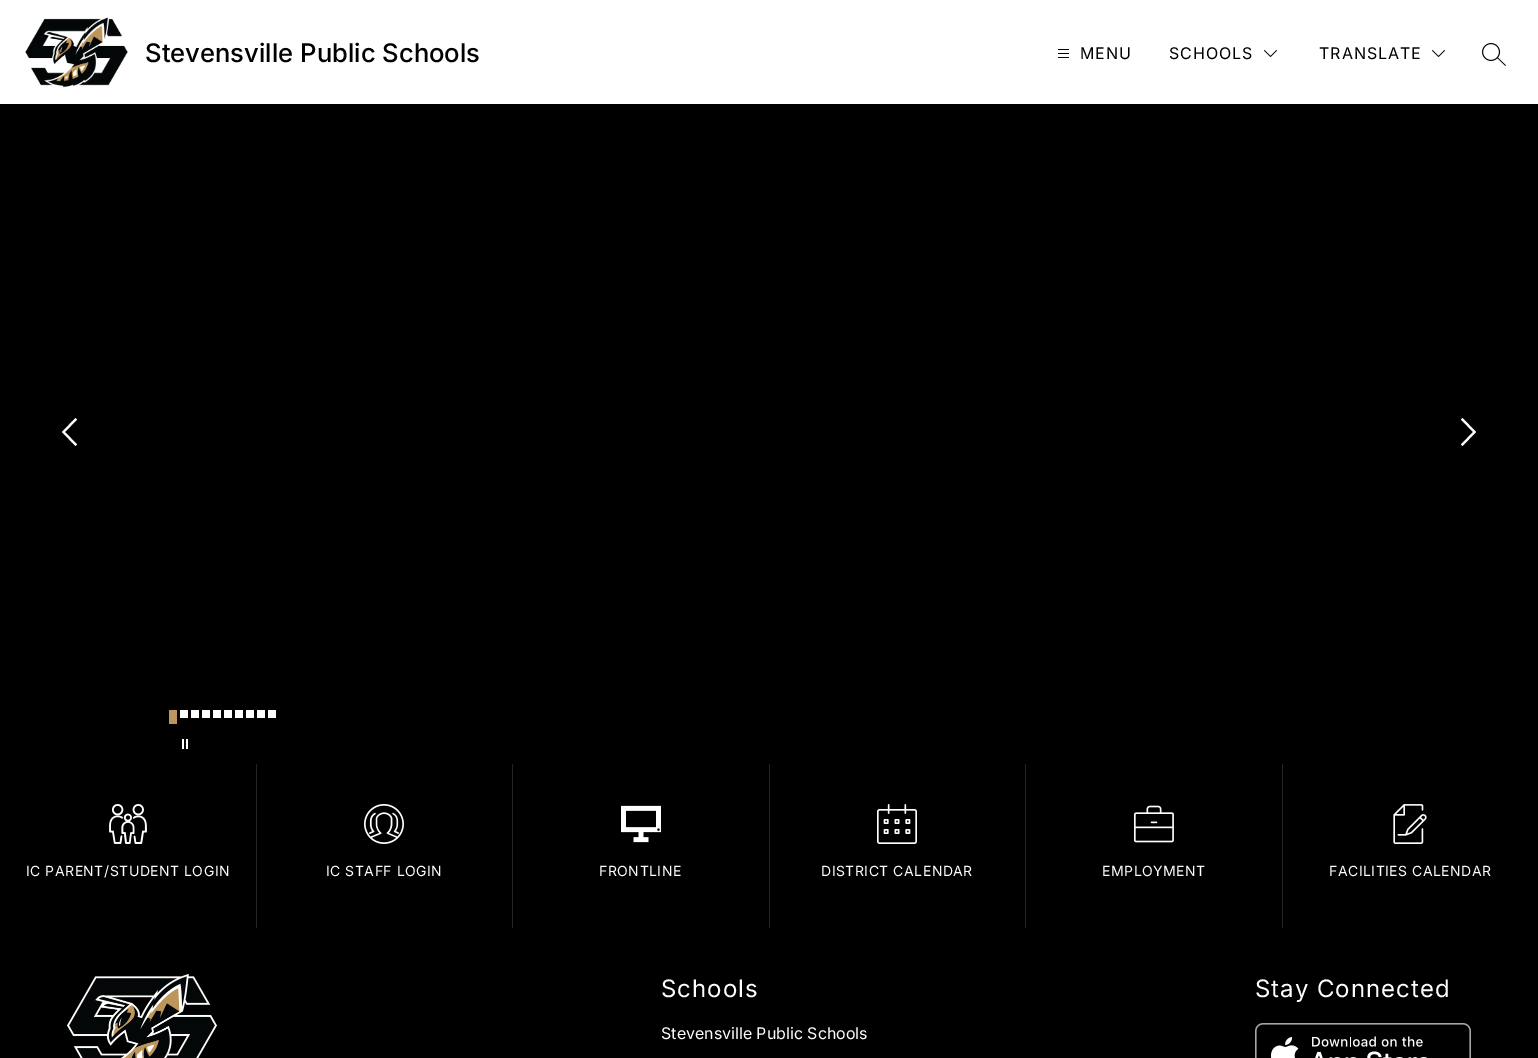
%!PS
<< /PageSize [1538 1058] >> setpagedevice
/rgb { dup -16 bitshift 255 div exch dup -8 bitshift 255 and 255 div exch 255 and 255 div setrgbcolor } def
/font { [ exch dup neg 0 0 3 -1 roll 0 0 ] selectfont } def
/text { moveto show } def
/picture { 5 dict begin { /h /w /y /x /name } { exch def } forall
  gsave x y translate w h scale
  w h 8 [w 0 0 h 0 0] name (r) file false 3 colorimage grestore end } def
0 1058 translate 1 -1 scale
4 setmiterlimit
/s1 { /Inter-Medium 25.6 font 16#000000 rgb } def
/s2 { /Inter-Regular 16 font 16#FFFFFF rgb } def
16#FFFFFF rgb
0 0 1538 1058 rectfill
(pic1.raw) 25 17 103 71 picture
s1
(Stevensville Public Schools) 145 62 text
(pic2.raw) 1058 49 11 9 picture
/Inter-Regular 16 font
1080 59 moveto 1 0 (MENU) ashow
1169 59 moveto 1 0 (SCHOOLS) ashow
(pic3.raw) 1264 50 13 7 picture
1319 59 moveto 1 0 (TRANSLATE) ashow
(pic3.raw) 1432 50 13 7 picture
(pic4.raw) 1482 43 24 23 picture
0 104 1538 660 rectfill
16#FFFFFF rgb
65 432 moveto 77 419.5 lineto 75.5 418 lineto 62 432 lineto 75.5 446 lineto 77 444.5 lineto closepath eofill
1473 432 moveto 1461 444.5 lineto 1462.5 446 lineto 1476 432 lineto 1462.5 418 lineto 1461 419.5 lineto closepath eofill
16#BE965D rgb
169 710 8 14 rectfill
16#FFFFFF rgb
180 710 8 8 rectfill
191 710 8 8 rectfill
202 710 8 8 rectfill
213 710 8 8 rectfill
224 710 8 8 rectfill
235 710 8 8 rectfill
246 710 8 8 rectfill
257 710 8 8 rectfill
268 710 8 8 rectfill
184 739 moveto 182 739 lineto 182 749 lineto 184 749 lineto closepath 188 739 moveto 186 739 lineto 186 749 lineto 188 749 lineto closepath eofill
16#000000 rgb
0 764 256 164 rectfill
(pic5.raw) 109 804 38 40 picture
/Inter-Regular 14 font
16#FFFFFF rgb
26 876 moveto 0.5 0 (IC PARENT/STUDENT LOGIN) ashow
16#000000 rgb
257 764 255 164 rectfill
16#262626 rgb
256 764 1 164 rectfill
(pic6.raw) 364 804 40 40 picture
16#FFFFFF rgb
326 876 moveto 0.5 0 (IC STAFF LOGIN) ashow
16#000000 rgb
513 764 256 164 rectfill
16#262626 rgb
512 764 1 164 rectfill
(pic7.raw) 621 805 40 38 picture
16#FFFFFF rgb
599 876 moveto 0.5 0 (FRONTLINE) ashow
16#000000 rgb
770 764 255 164 rectfill
16#262626 rgb
769 764 1 164 rectfill
(pic8.raw) 877 804 40 40 picture
16#FFFFFF rgb
821 876 moveto 0.5 0 (DISTRICT CALENDAR) ashow
16#000000 rgb
1026 764 256 164 rectfill
16#262626 rgb
1025 764 1 164 rectfill
(pic9.raw) 1134 805 40 38 picture
16#FFFFFF rgb
1102 876 moveto 0.5 0 (EMPLOYMENT) ashow
16#000000 rgb
1283 764 255 164 rectfill
16#262626 rgb
1282 764 1 164 rectfill
(pic10.raw) 1393 804 34 40 picture
16#FFFFFF rgb
1329 876 moveto 0.5 0 (FACILITIES CALENDAR) ashow
16#000000 rgb
0 928 1538 130 rectfill
(pic11.raw) 67 974 150 84 picture
/Inter-Regular 24 font
16#FFFFFF rgb
661 997 moveto 1 0 (Schools) ashow
s2
(Stevensville Public Schools) 661 1039 text
/Inter-Regular 24 font
1255 997 moveto 1 0 (Stay Connected) ashow
(pic12.raw) 1255 1023 216 35 picture
showpage
